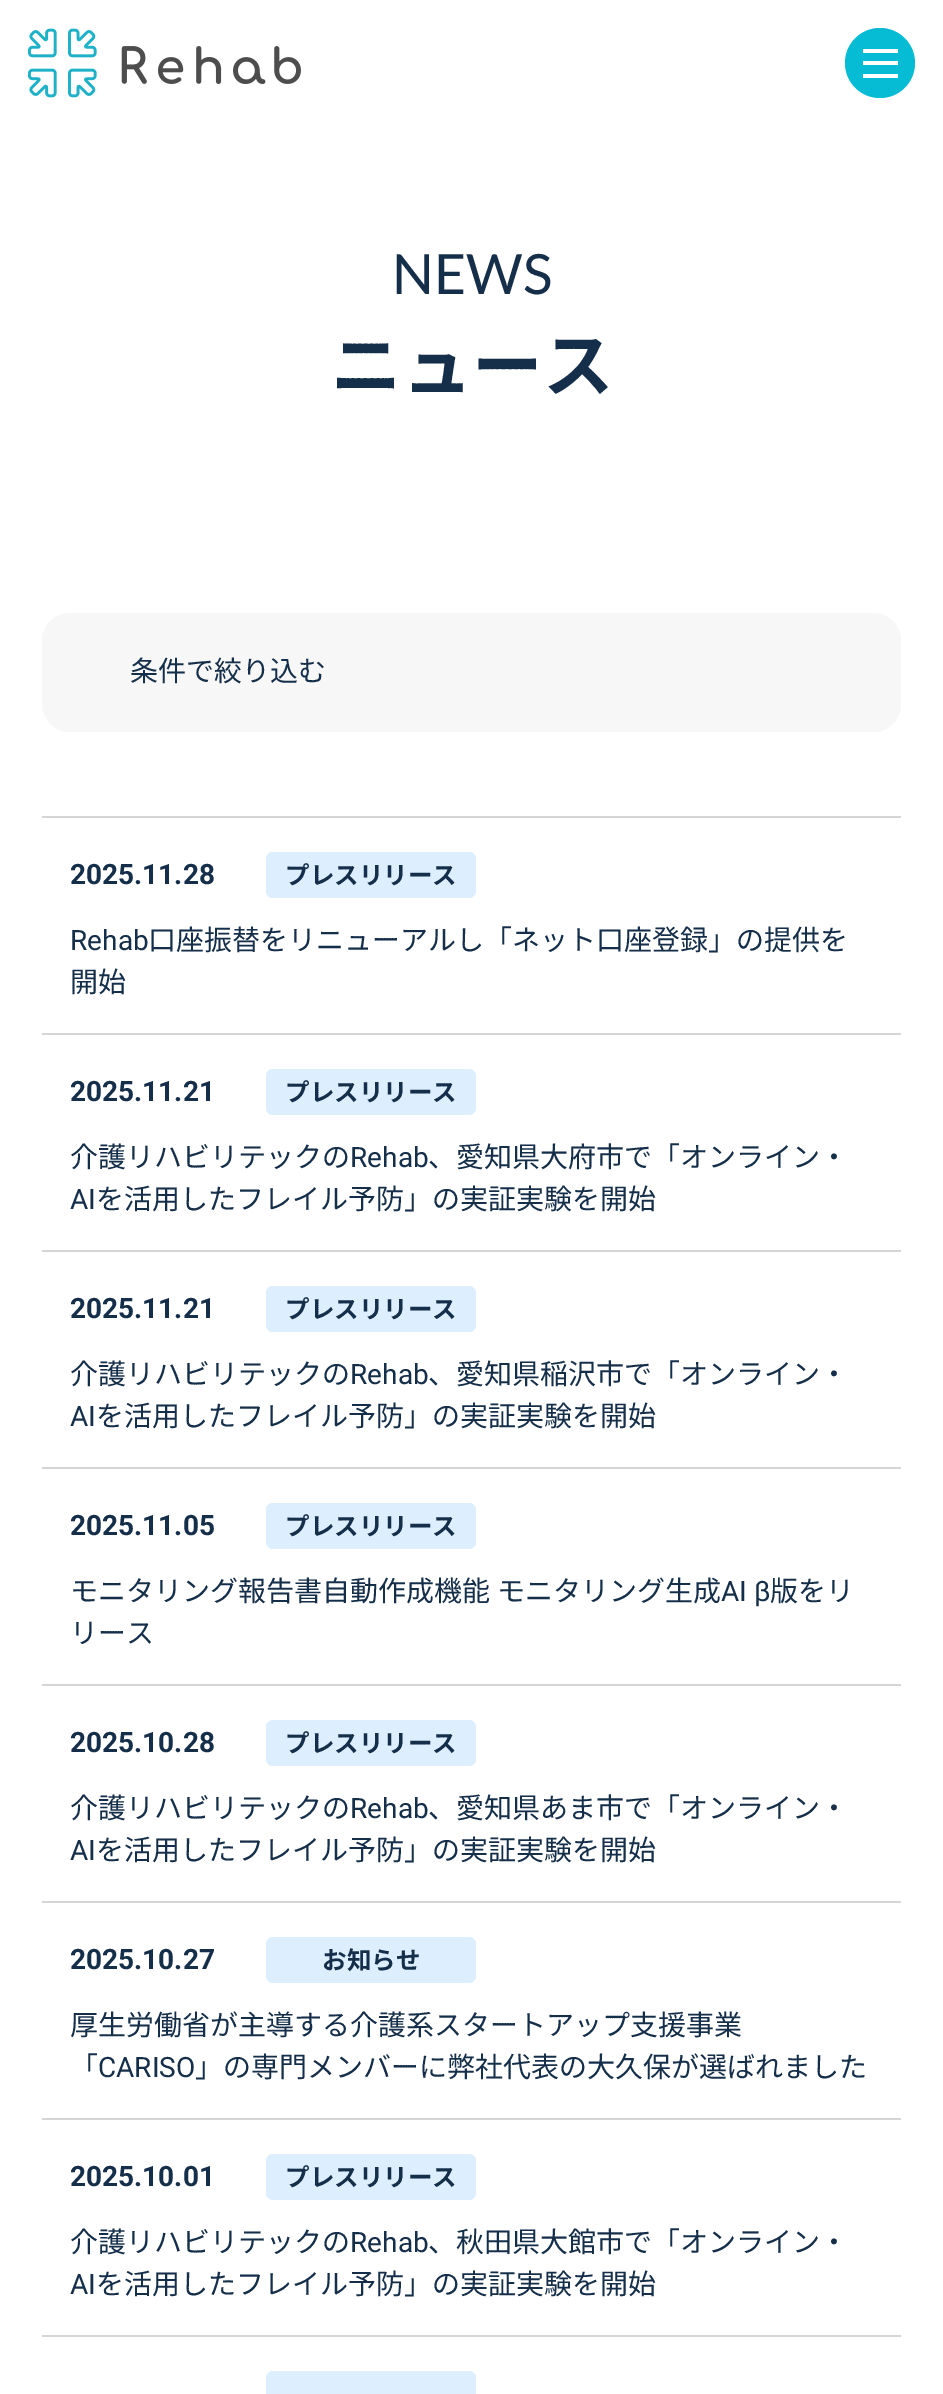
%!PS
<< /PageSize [943 2394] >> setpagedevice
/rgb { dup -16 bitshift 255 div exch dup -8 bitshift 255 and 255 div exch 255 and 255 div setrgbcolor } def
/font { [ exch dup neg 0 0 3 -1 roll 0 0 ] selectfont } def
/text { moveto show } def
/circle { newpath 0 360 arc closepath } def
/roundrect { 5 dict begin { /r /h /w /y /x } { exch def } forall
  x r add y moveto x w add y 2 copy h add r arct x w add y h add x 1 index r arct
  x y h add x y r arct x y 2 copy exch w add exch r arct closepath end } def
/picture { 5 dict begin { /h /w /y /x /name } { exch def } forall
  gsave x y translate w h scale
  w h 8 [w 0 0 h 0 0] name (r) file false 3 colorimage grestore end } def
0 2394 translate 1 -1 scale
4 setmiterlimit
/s1 { /Lato-Regular 55.5 font 16#152F4A rgb } def
/s2 { /NotoSansCJKJP-Bold 70.5 font 16#152F4A rgb } def
/s3 { /NotoSansCJKJP-Regular 28 font 16#152F4A rgb } def
/s4 { /Roboto-Bold 28 font 16#152F4A rgb } def
/s5 { /NotoSansCJKJP-Bold 24.5 font 16#152F4A rgb } def
/s6 { /Roboto-Regular 28 font 16#152F4A rgb } def
16#FFFFFF rgb
0 0 943 2394 rectfill
(pic1.raw) 28 28 273 70 picture
16#06BCD4 rgb
880 63 35 circle fill
16#FFFFFF rgb
863 49 35 4 rectfill
863 61 35 4 rectfill
863 74 35 4 rectfill
s1
(NEWS) 392 294 text
s2
(ニュース) 331 391 text
16#F7F7F7 rgb
42 613 859 119 28 roundrect fill
s3
(条件で絞り込む) 130 681 text
16#D5D5D5 rgb
42 816 859 2 rectfill
s4
(2025.11.28) 70 884 text
16#DDEFFF rgb
266 852 210 46 7 roundrect fill
s5
(プレスリリース) 285 884 text
s6
(Rehab) 70 950 text
s3
(口座振替をリニューアルし「ネット口座登録」の提供を) 148 950 text
(開始) 70 992 text
16#D5D5D5 rgb
42 1033 859 2 rectfill
s4
(2025.11.21) 70 1101 text
16#DDEFFF rgb
266 1069 210 46 7 roundrect fill
s5
(プレスリリース) 285 1101 text
s3
(介護リハビリテックの) 70 1167 text
s6
(Rehab) 350 1167 text
s3
(、愛知県大府市で「オンライン・) 428 1167 text
s6
(AI) 70 1209 text
s3
(を活用したフレイル予防」の実証実験を開始) 96 1209 text
16#D5D5D5 rgb
42 1250 859 2 rectfill
s4
(2025.11.21) 70 1318 text
16#DDEFFF rgb
266 1286 210 46 7 roundrect fill
s5
(プレスリリース) 285 1318 text
s3
(介護リハビリテックの) 70 1384 text
s6
(Rehab) 350 1384 text
s3
(、愛知県稲沢市で「オンライン・) 428 1384 text
s6
(AI) 70 1426 text
s3
(を活用したフレイル予防」の実証実験を開始) 96 1426 text
16#D5D5D5 rgb
42 1467 859 2 rectfill
s4
(2025.11.05) 70 1535 text
16#DDEFFF rgb
266 1503 210 46 7 roundrect fill
s5
(プレスリリース) 285 1535 text
s3
(モニタリング報告書自動作成機能) 70 1601 text
(モニタリング生成) 497 1601 text
s6
(AI β) 721 1601 text
s3
(版をリ) 770 1601 text
(リース) 70 1643 text
16#D5D5D5 rgb
42 1684 859 2 rectfill
s4
(2025.10.28) 70 1752 text
16#DDEFFF rgb
266 1720 210 46 7 roundrect fill
s5
(プレスリリース) 285 1752 text
s3
(介護リハビリテックの) 70 1818 text
s6
(Rehab) 350 1818 text
s3
(、愛知県あま市で「オンライン・) 428 1818 text
s6
(AI) 70 1860 text
s3
(を活用したフレイル予防」の実証実験を開始) 96 1860 text
16#D5D5D5 rgb
42 1901 859 2 rectfill
s4
(2025.10.27) 70 1969 text
16#DDEFFF rgb
266 1937 210 46 7 roundrect fill
s5
(お知らせ) 322 1969 text
s3
(厚生労働省が主導する介護系スタートアップ支援事業) 70 2035 text
(「) 70 2077 text
s6
(CARISO) 98 2077 text
s3
(」の専門メンバーに弊社代表の大久保が選ばれました) 195 2077 text
16#D5D5D5 rgb
42 2118 859 2 rectfill
s4
(2025.10.01) 70 2186 text
16#DDEFFF rgb
266 2154 210 46 7 roundrect fill
s5
(プレスリリース) 285 2186 text
s3
(介護リハビリテックの) 70 2252 text
s6
(Rehab) 350 2252 text
s3
(、秋田県大館市で「オンライン・) 428 2252 text
s6
(AI) 70 2294 text
s3
(を活用したフレイル予防」の実証実験を開始) 96 2294 text
16#D5D5D5 rgb
42 2335 859 2 rectfill
16#DDEFFF rgb
266 2371 210 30 7 roundrect fill
showpage
